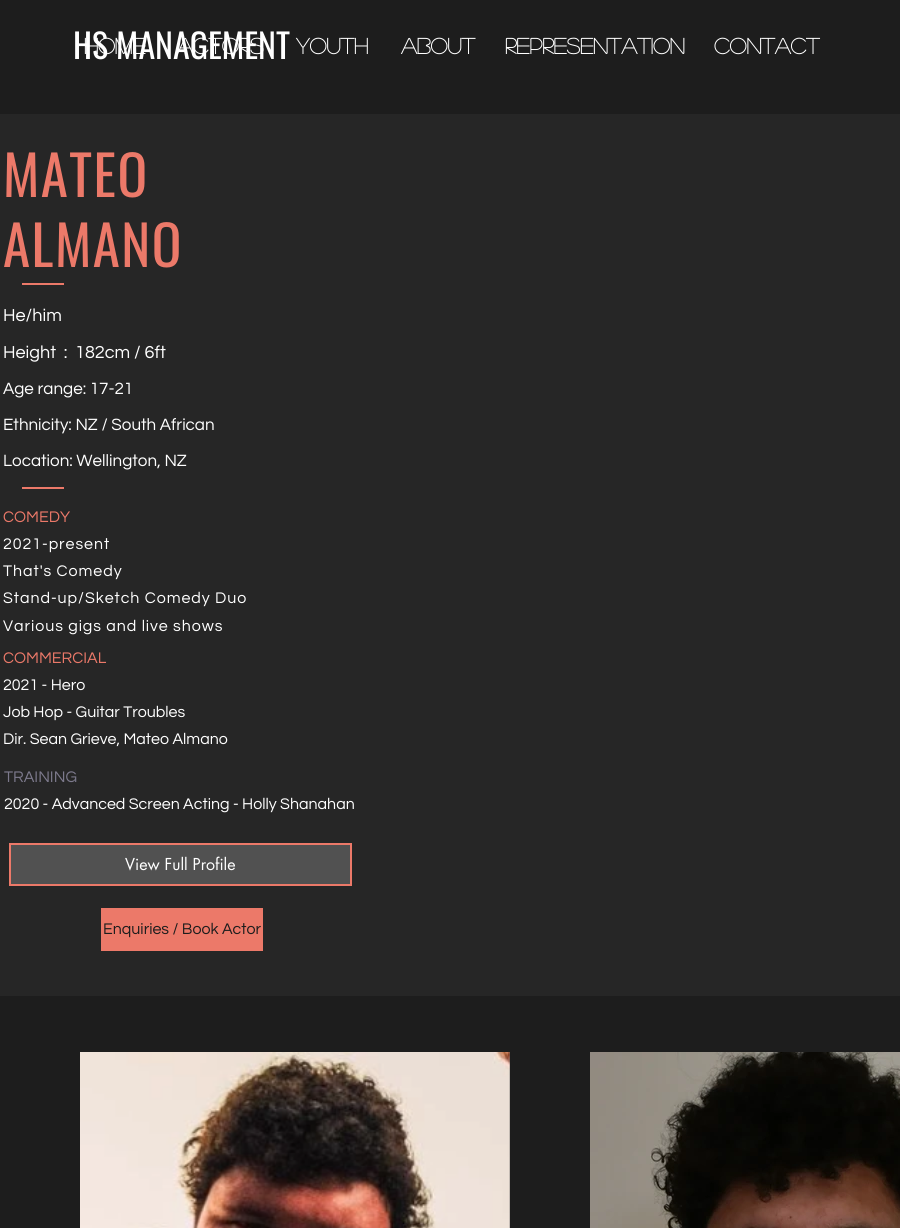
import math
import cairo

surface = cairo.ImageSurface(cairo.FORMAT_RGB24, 900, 1228)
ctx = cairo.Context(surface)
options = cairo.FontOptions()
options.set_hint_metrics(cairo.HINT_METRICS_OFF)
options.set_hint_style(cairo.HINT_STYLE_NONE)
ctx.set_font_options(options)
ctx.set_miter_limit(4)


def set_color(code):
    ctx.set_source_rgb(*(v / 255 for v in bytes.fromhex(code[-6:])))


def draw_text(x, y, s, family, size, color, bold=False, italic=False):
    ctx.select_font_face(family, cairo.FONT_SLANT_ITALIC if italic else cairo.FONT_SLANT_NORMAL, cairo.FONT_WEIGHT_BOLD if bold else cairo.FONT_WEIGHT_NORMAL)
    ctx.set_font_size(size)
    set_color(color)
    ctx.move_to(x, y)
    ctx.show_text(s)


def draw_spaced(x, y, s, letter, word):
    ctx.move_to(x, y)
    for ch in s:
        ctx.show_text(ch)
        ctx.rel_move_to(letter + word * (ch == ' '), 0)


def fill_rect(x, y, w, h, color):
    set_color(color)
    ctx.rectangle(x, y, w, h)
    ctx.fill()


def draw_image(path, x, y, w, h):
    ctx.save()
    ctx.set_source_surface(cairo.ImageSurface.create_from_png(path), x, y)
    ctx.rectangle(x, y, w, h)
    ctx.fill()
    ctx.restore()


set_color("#1d1d1d")
ctx.paint()
draw_text(84, 54, "Home", "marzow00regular", 22, "#ffffff", bold=True)
draw_text(177, 54, "Actors", "marzow00regular", 22, "#ffffff", bold=True)
draw_text(73, 59, "HS MANAGEMENT", "Oswald", 34, "#ffffff")
draw_text(296, 54, "Youth", "marzow00regular", 22, "#ffffff", bold=True)
draw_text(401, 54, "About", "marzow00regular", 22, "#ffffff", bold=True)
draw_text(505, 54, "Representation", "marzow00regular", 22, "#ffffff", bold=True)
draw_text(714, 54, "Contact", "marzow00regular", 22, "#ffffff", bold=True)
fill_rect(0, 114, 900, 882, "#262626")
ctx.select_font_face("Oswald")
ctx.set_font_size(55)
set_color("#ec7969")
draw_spaced(3, 197, "MATEO", 1.5, 0)
draw_spaced(3, 267, "ALMANO", 1.5, 0)
fill_rect(22, 283, 42, 2, "#ec7969")
draw_text(3, 321, "He/him", "Questrial", 18, "#ffffff")
draw_text(3, 358, "Height  :  182cm / 6ft", "Questrial", 18, "#ffffff")
draw_text(3, 394, "Age range: 17-21", "Questrial", 17, "#ffffff")
draw_text(3, 430, "Ethnicity: NZ / South African", "Questrial", 17, "#ffffff")
draw_text(3, 466, "Location: Wellington, NZ", "Questrial", 17, "#ffffff")
fill_rect(22, 487, 42, 2, "#ec7969")
draw_text(3, 522, "COMEDY", "Questrial", 16, "#ec7969")
set_color("#ffffff")
draw_spaced(3, 549, "2021-present", 0.95, 0)
draw_spaced(3, 576, "That's Comedy", 0.95, 0)
draw_spaced(3, 603, "Stand-up/Sketch Comedy Duo", 0.95, 0)
draw_spaced(3, 631, "Various gigs and live shows", 0.95, 0)
draw_text(3, 663, "COMMERCIAL", "Questrial", 16, "#ec7969")
draw_text(3, 690, "2021 - Hero", "Questrial", 16, "#ffffff")
draw_text(3, 717, "Job Hop - Guitar Troubles", "Questrial", 16, "#ffffff")
draw_text(3, 744, "Dir. Sean Grieve, Mateo Almano", "Questrial", 16, "#ffffff")
draw_text(4, 782, "TRAINING", "Questrial", 16, "#7d7a8d")
draw_text(4, 809, "2020 - Advanced Screen Acting - Holly Shanahan", "Questrial", 16, "#ffffff")
set_color("#515151")
ctx.rectangle(10, 844, 341, 41)
ctx.fill_preserve()
set_color("#ec7969")
ctx.stroke()
draw_text(125, 870, "View Full Profile", "futura", 16, "#ffffff")
fill_rect(101, 908, 162, 43, "#ec7969")
draw_text(103, 934, "Enquiries / Book Actor", "Questrial", 16, "#1d1d1d")
fill_rect(509, 1052, 1, 176, "#6e6d6d")
draw_image("assets/img1.png", 80, 1052, 430, 176)
draw_image("assets/img2.png", 590, 1052, 310, 176)
surface.write_to_png("output.png")
